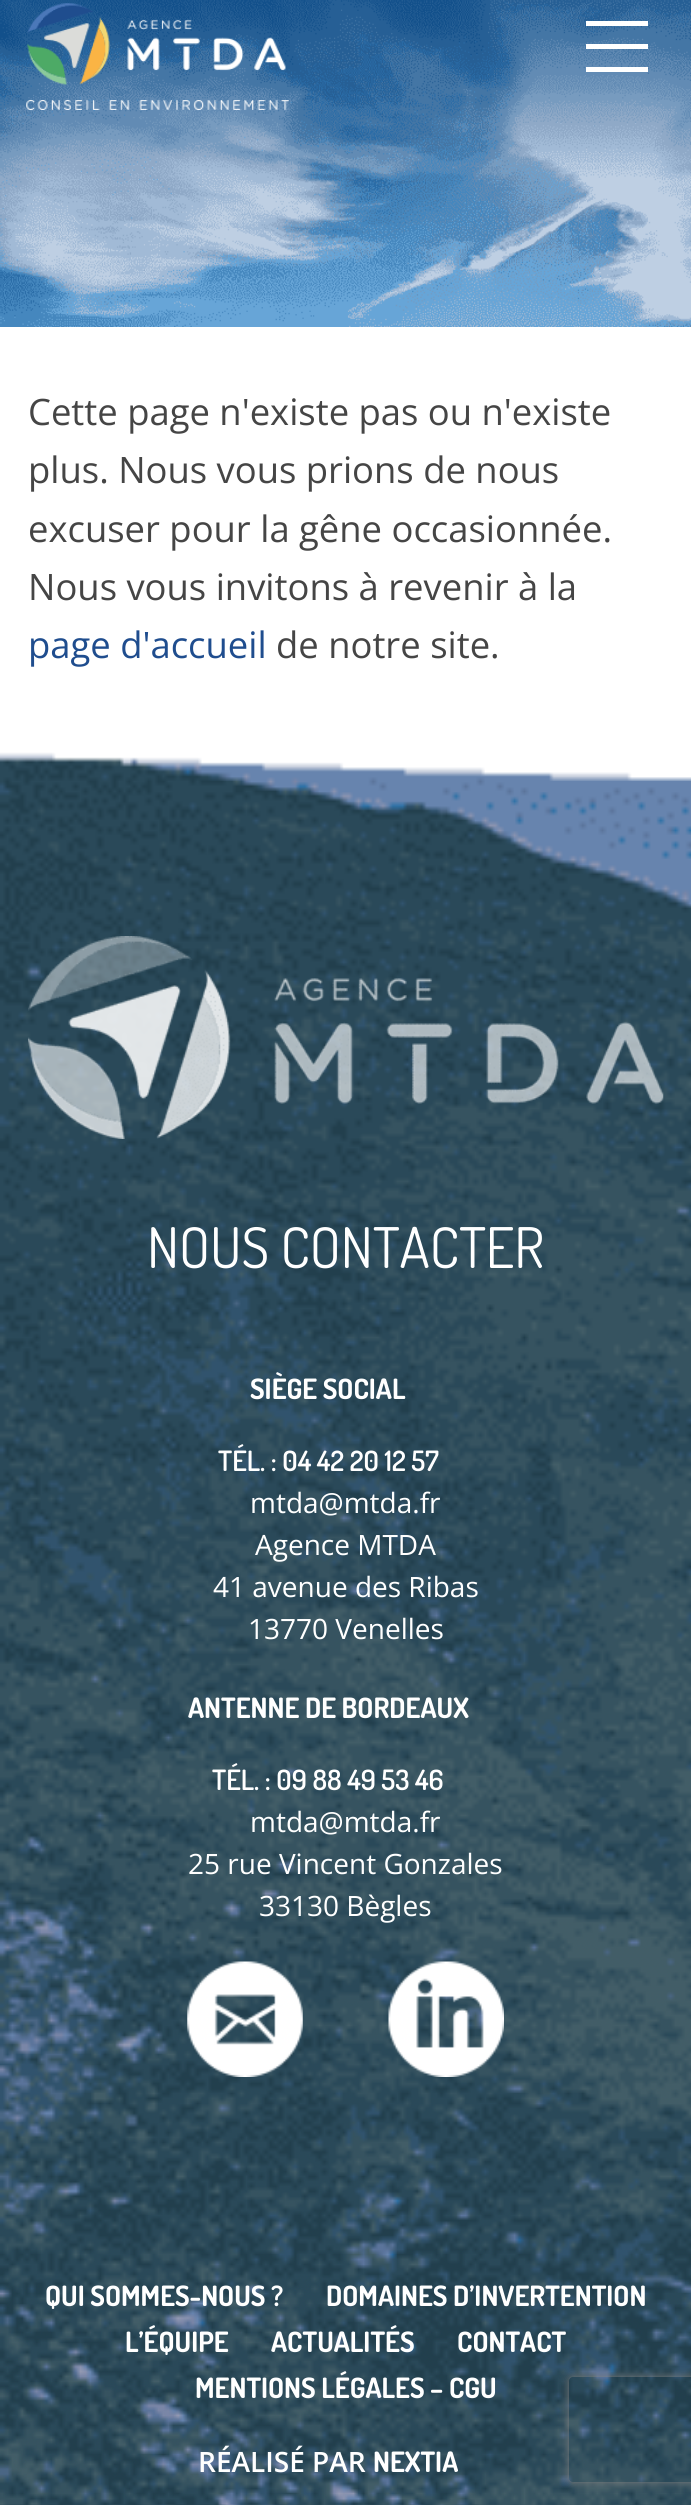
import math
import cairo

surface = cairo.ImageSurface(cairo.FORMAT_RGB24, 691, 2505)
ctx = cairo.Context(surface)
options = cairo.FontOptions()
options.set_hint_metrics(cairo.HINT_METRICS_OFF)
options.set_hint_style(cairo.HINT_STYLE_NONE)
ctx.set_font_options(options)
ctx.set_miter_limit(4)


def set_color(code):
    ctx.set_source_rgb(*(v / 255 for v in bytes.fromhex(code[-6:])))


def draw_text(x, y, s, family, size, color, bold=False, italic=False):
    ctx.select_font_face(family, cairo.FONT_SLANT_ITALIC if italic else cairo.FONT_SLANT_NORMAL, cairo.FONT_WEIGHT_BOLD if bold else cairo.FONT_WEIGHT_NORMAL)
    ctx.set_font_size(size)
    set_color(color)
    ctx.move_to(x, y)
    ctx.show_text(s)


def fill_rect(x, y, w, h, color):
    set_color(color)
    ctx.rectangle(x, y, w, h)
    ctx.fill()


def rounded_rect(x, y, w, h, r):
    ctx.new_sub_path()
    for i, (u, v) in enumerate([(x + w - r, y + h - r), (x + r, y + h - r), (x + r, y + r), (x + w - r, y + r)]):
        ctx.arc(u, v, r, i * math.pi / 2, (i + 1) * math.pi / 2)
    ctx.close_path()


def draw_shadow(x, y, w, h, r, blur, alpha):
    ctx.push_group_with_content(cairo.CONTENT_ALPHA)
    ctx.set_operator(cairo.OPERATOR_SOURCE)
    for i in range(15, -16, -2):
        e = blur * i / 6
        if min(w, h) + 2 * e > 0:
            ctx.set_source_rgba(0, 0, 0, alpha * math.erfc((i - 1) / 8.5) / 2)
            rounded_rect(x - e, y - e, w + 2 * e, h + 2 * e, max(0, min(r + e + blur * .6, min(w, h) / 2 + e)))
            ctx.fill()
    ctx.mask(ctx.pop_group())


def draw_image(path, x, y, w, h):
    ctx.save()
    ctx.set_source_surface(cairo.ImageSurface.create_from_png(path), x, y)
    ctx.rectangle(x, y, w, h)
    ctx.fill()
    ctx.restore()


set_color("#ffffff")
ctx.paint()
draw_image("assets/img1.png", 0, 0, 691, 327)
draw_image("assets/img2.png", 26, 3, 263, 107)
fill_rect(586, 44, 62, 5, "#ffffff")
fill_rect(586, 21, 62, 5, "#ffffff")
fill_rect(586, 67, 62, 5, "#ffffff")
draw_text(28, 425, "Cette page n'existe pas ou n'existe", "Open Sans", 36.4, "#454545")
draw_text(28, 483, "plus. Nous vous prions de nous", "Open Sans", 36.4, "#454545")
draw_text(28, 542, "excuser pour la gêne occasionnée.", "Open Sans", 36.4, "#454545")
draw_text(28, 600, "Nous vous invitons à revenir à la", "Open Sans", 36.4, "#454545")
draw_text(28, 658, "page d'accueil", "Open Sans", 36.4, "#1f4d8e")
draw_text(276, 658, "de notre site.", "Open Sans", 36.4, "#454545")
draw_image("assets/img3.png", 0, 752, 691, 1753)
draw_image("assets/img4.png", 28, 936, 636, 203)
draw_text(147, 1268, "NOUS CONTACTER", "Dosis", 56, "#ffffff")
draw_text(250, 1399, "SIÈGE SOCIAL", "Dosis", 28, "#ffffff", bold=True)
draw_text(218, 1471, "TÉL. : 04 42 20 12 57", "Dosis SemiBold", 28, "#ffffff")
draw_text(250, 1513, "mtda@mtda.fr", "Open Sans", 28, "#ffffff")
draw_text(255, 1555, "Agence MTDA", "Open Sans", 28, "#ffffff")
draw_text(213, 1597, "41 avenue des Ribas", "Open Sans", 28, "#ffffff")
draw_text(248, 1639, "13770 Venelles", "Open Sans", 28, "#ffffff")
draw_text(188, 1718, "ANTENNE DE BORDEAUX", "Dosis", 28, "#ffffff", bold=True)
draw_text(212, 1790, "TÉL. : 09 88 49 53 46", "Dosis SemiBold", 28, "#ffffff")
draw_text(250, 1832, "mtda@mtda.fr", "Open Sans", 28, "#ffffff")
draw_text(188, 1874, "25 rue Vincent Gonzales", "Open Sans", 28, "#ffffff")
draw_text(259, 1916, "33130 Bègles", "Open Sans", 28, "#ffffff")
draw_image("assets/img5.png", 187, 1961, 116, 116)
draw_image("assets/img6.png", 388, 1961, 116, 116)
draw_text(45, 2306, "QUI SOMMES-NOUS ?", "Dosis", 28, "#ffffff", bold=True)
draw_text(326, 2306, "DOMAINES D’INVERTENTION", "Dosis", 28, "#ffffff", bold=True)
draw_text(125, 2352, "L’ÉQUIPE", "Dosis", 28, "#ffffff", bold=True)
draw_text(271, 2352, "ACTUALITÉS", "Dosis", 28, "#ffffff", bold=True)
draw_text(457, 2352, "CONTACT", "Dosis", 28, "#ffffff", bold=True)
draw_text(195, 2398, "MENTIONS LÉGALES – CGU", "Dosis", 28, "#ffffff", bold=True)
draw_text(198, 2472, "RÉALISÉ PAR", "Open Sans SemiBold", 28, "#ffffff")
draw_text(373, 2472, "NEXTIA", "Dosis", 28, "#ffffff", bold=True)
ctx.save()
ctx.set_fill_rule(cairo.FILL_RULE_EVEN_ODD)
ctx.new_path()
ctx.move_to(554, 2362)
ctx.line_to(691, 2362)
ctx.line_to(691, 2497)
ctx.line_to(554, 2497)
ctx.close_path()
ctx.move_to(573, 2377)
ctx.line_to(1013, 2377)
ctx.curve_to(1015, 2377, 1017, 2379, 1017, 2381)
ctx.line_to(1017, 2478)
ctx.curve_to(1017, 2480, 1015, 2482, 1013, 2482)
ctx.line_to(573, 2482)
ctx.curve_to(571, 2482, 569, 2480, 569, 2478)
ctx.line_to(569, 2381)
ctx.curve_to(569, 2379, 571, 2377, 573, 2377)
ctx.close_path()
ctx.clip()
set_color("#808080")
draw_shadow(569, 2377, 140, 105, 4, 4.5, 1)
ctx.restore()
surface.write_to_png("output.png")
